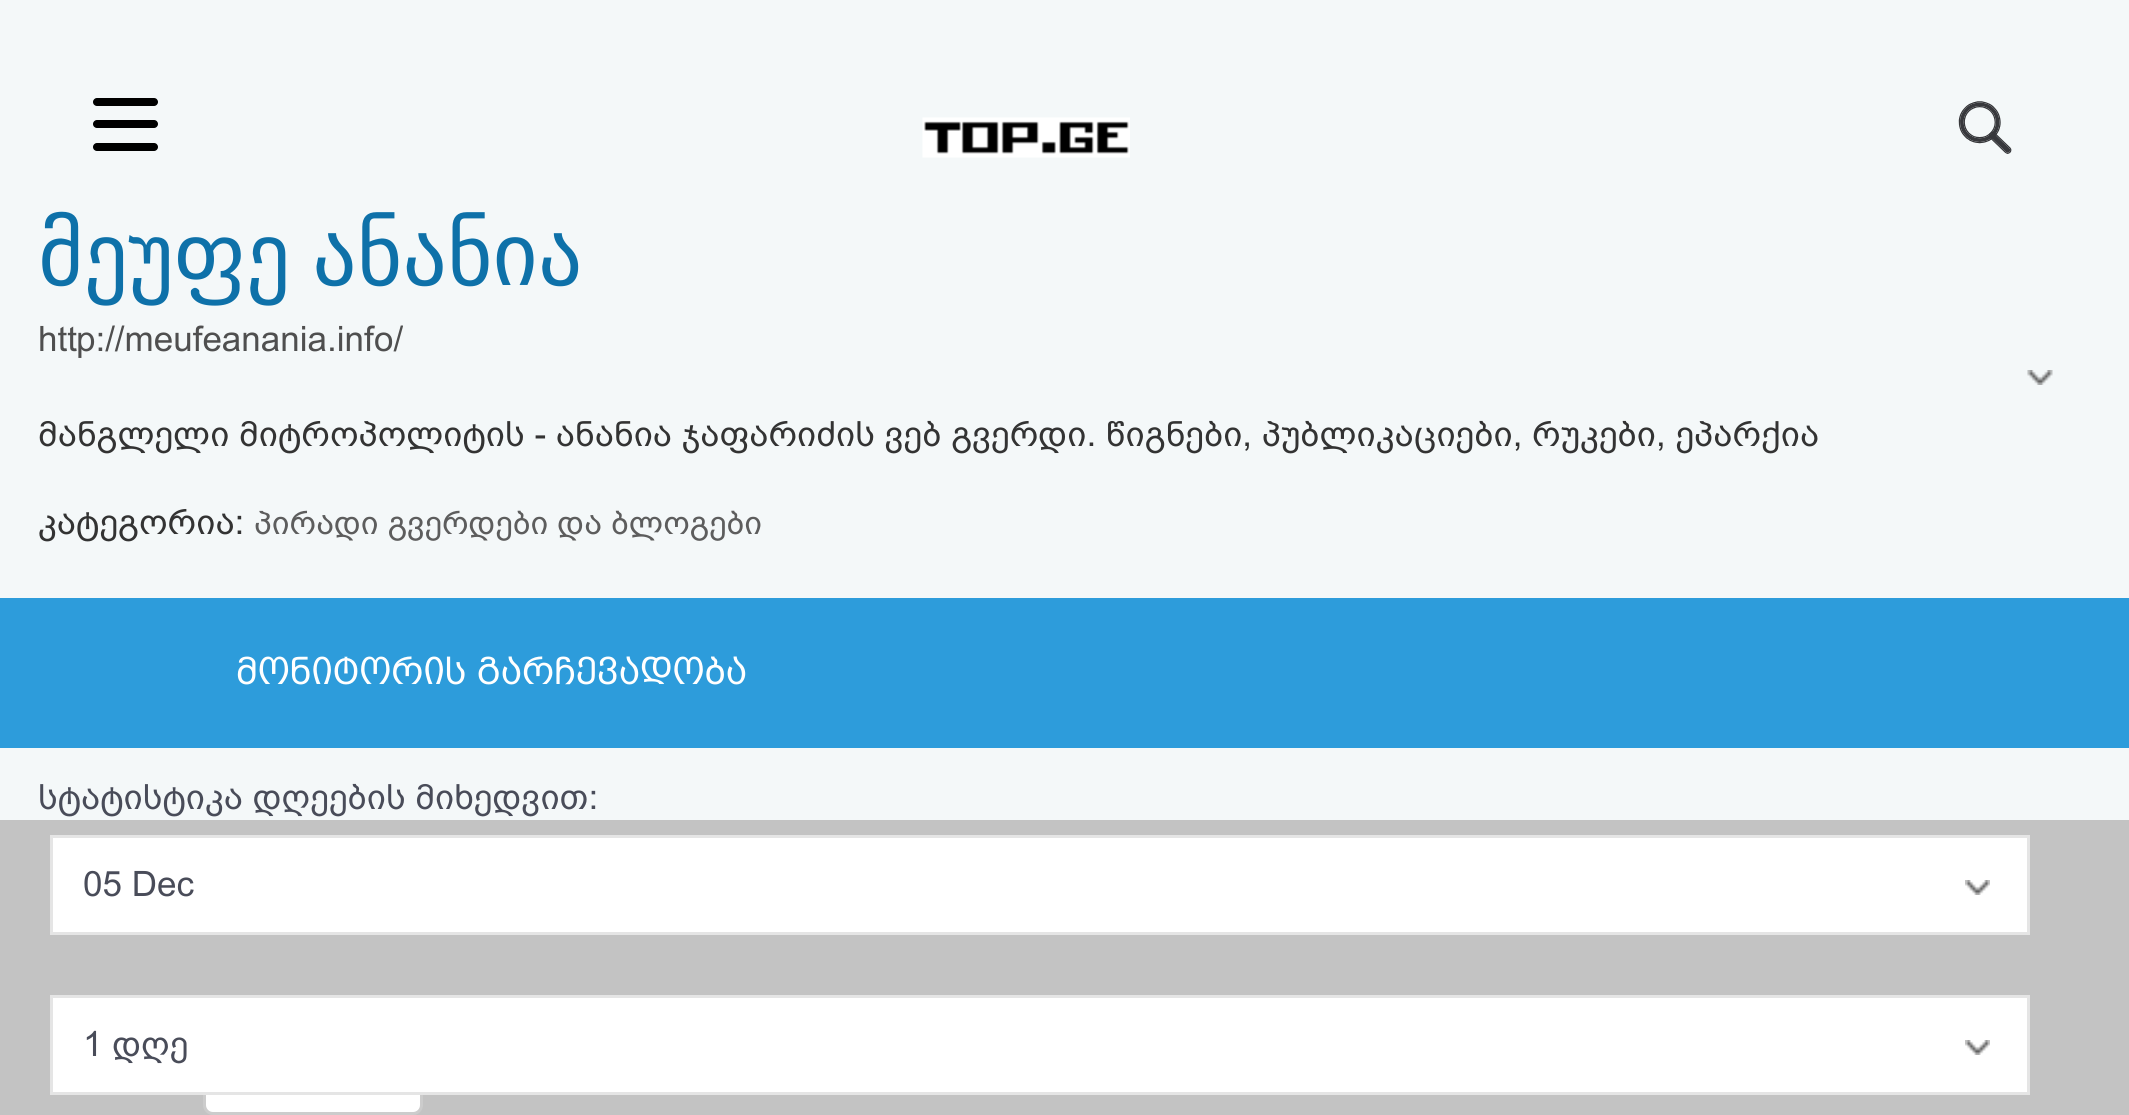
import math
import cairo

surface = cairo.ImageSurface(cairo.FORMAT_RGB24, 2129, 1115)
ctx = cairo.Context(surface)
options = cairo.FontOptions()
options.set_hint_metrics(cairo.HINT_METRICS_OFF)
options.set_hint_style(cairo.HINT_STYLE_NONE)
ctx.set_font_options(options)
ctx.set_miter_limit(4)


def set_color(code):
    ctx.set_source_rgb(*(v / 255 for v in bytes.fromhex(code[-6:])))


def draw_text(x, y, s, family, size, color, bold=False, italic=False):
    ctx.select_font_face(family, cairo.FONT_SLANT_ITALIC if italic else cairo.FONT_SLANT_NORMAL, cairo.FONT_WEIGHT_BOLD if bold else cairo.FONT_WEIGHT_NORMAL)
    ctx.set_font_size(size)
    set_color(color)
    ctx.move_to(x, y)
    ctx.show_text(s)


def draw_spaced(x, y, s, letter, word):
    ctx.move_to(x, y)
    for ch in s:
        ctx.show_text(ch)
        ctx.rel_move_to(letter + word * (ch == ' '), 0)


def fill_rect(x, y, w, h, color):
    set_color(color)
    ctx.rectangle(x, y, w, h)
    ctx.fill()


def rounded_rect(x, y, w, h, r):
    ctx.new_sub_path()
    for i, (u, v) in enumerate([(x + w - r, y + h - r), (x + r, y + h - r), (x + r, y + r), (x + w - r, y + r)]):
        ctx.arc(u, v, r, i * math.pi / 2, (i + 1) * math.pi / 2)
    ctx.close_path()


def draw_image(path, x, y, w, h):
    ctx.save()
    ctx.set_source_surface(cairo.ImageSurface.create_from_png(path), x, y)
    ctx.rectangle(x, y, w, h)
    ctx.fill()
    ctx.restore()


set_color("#f4f8f9")
ctx.paint()
set_color("#000000")
rounded_rect(93, 98, 65, 8, 4)
ctx.fill()
rounded_rect(93, 120, 65, 8, 4)
ctx.fill()
rounded_rect(93, 143, 65, 8, 4)
ctx.fill()
draw_image("assets/img1.png", 922, 117, 208, 41)
draw_image("assets/img2.png", 1958, 101, 54, 53)
draw_image("assets/img3.png", 2027, 370, 26, 15)
ctx.select_font_face("DejaVu Sans")
ctx.set_font_size(87.5)
set_color("#0e71a9")
draw_spaced(38, 285, "მეუფე ანანია", 0, -6)
draw_text(38, 351, "http://meufeanania.info/", "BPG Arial", 35, "#4f4f4f")
draw_text(38, 446, "მანგლელი მიტროპოლიტის - ანანია ჯაფარიძის ვებ გვერდი. წიგნები, პუბლიკაციები, რუკები, ეპარქია", "BPG Arial", 35, "#333333")
draw_text(38, 534, "კატეგორია:", "BPG Arial", 35, "#333333")
draw_text(254, 534, "პირადი გვერდები და ბლოგები", "BPG Arial", 32.5, "#5d5d5d")
fill_rect(0, 598, 2129, 150, "#2d9cdb")
draw_text(236, 684, "მონიტორის გარჩევადობა", "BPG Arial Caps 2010", 37.5, "#ffffff")
draw_text(38, 809, "სტატისტიკა დღეების მიხედვით:", "BPG Arial", 35, "#494c59")
fill_rect(0, 820, 2129, 295, "#c3c3c3")
set_color("#ffffff")
ctx.rectangle(51.5, 836.5, 1977, 97)
ctx.fill_preserve()
set_color("#e5e5e5")
ctx.set_line_width(3)
ctx.stroke()
draw_text(83, 896, "05 Dec", "BPG Arial", 35, "#494c59")
draw_image("assets/img4.png", 1965, 880, 25, 15)
set_color("#ffffff")
rounded_rect(204.5, 1031.5, 217, 82, 8.5)
ctx.fill_preserve()
set_color("#cccccc")
ctx.stroke()
set_color("#ffffff")
ctx.rectangle(51.5, 996.5, 1977, 97)
ctx.fill_preserve()
set_color("#e5e5e5")
ctx.stroke()
draw_text(83, 1056, "1 დღე", "BPG Arial", 35, "#494c59")
draw_image("assets/img4.png", 1965, 1040, 25, 15)
surface.write_to_png("output.png")
